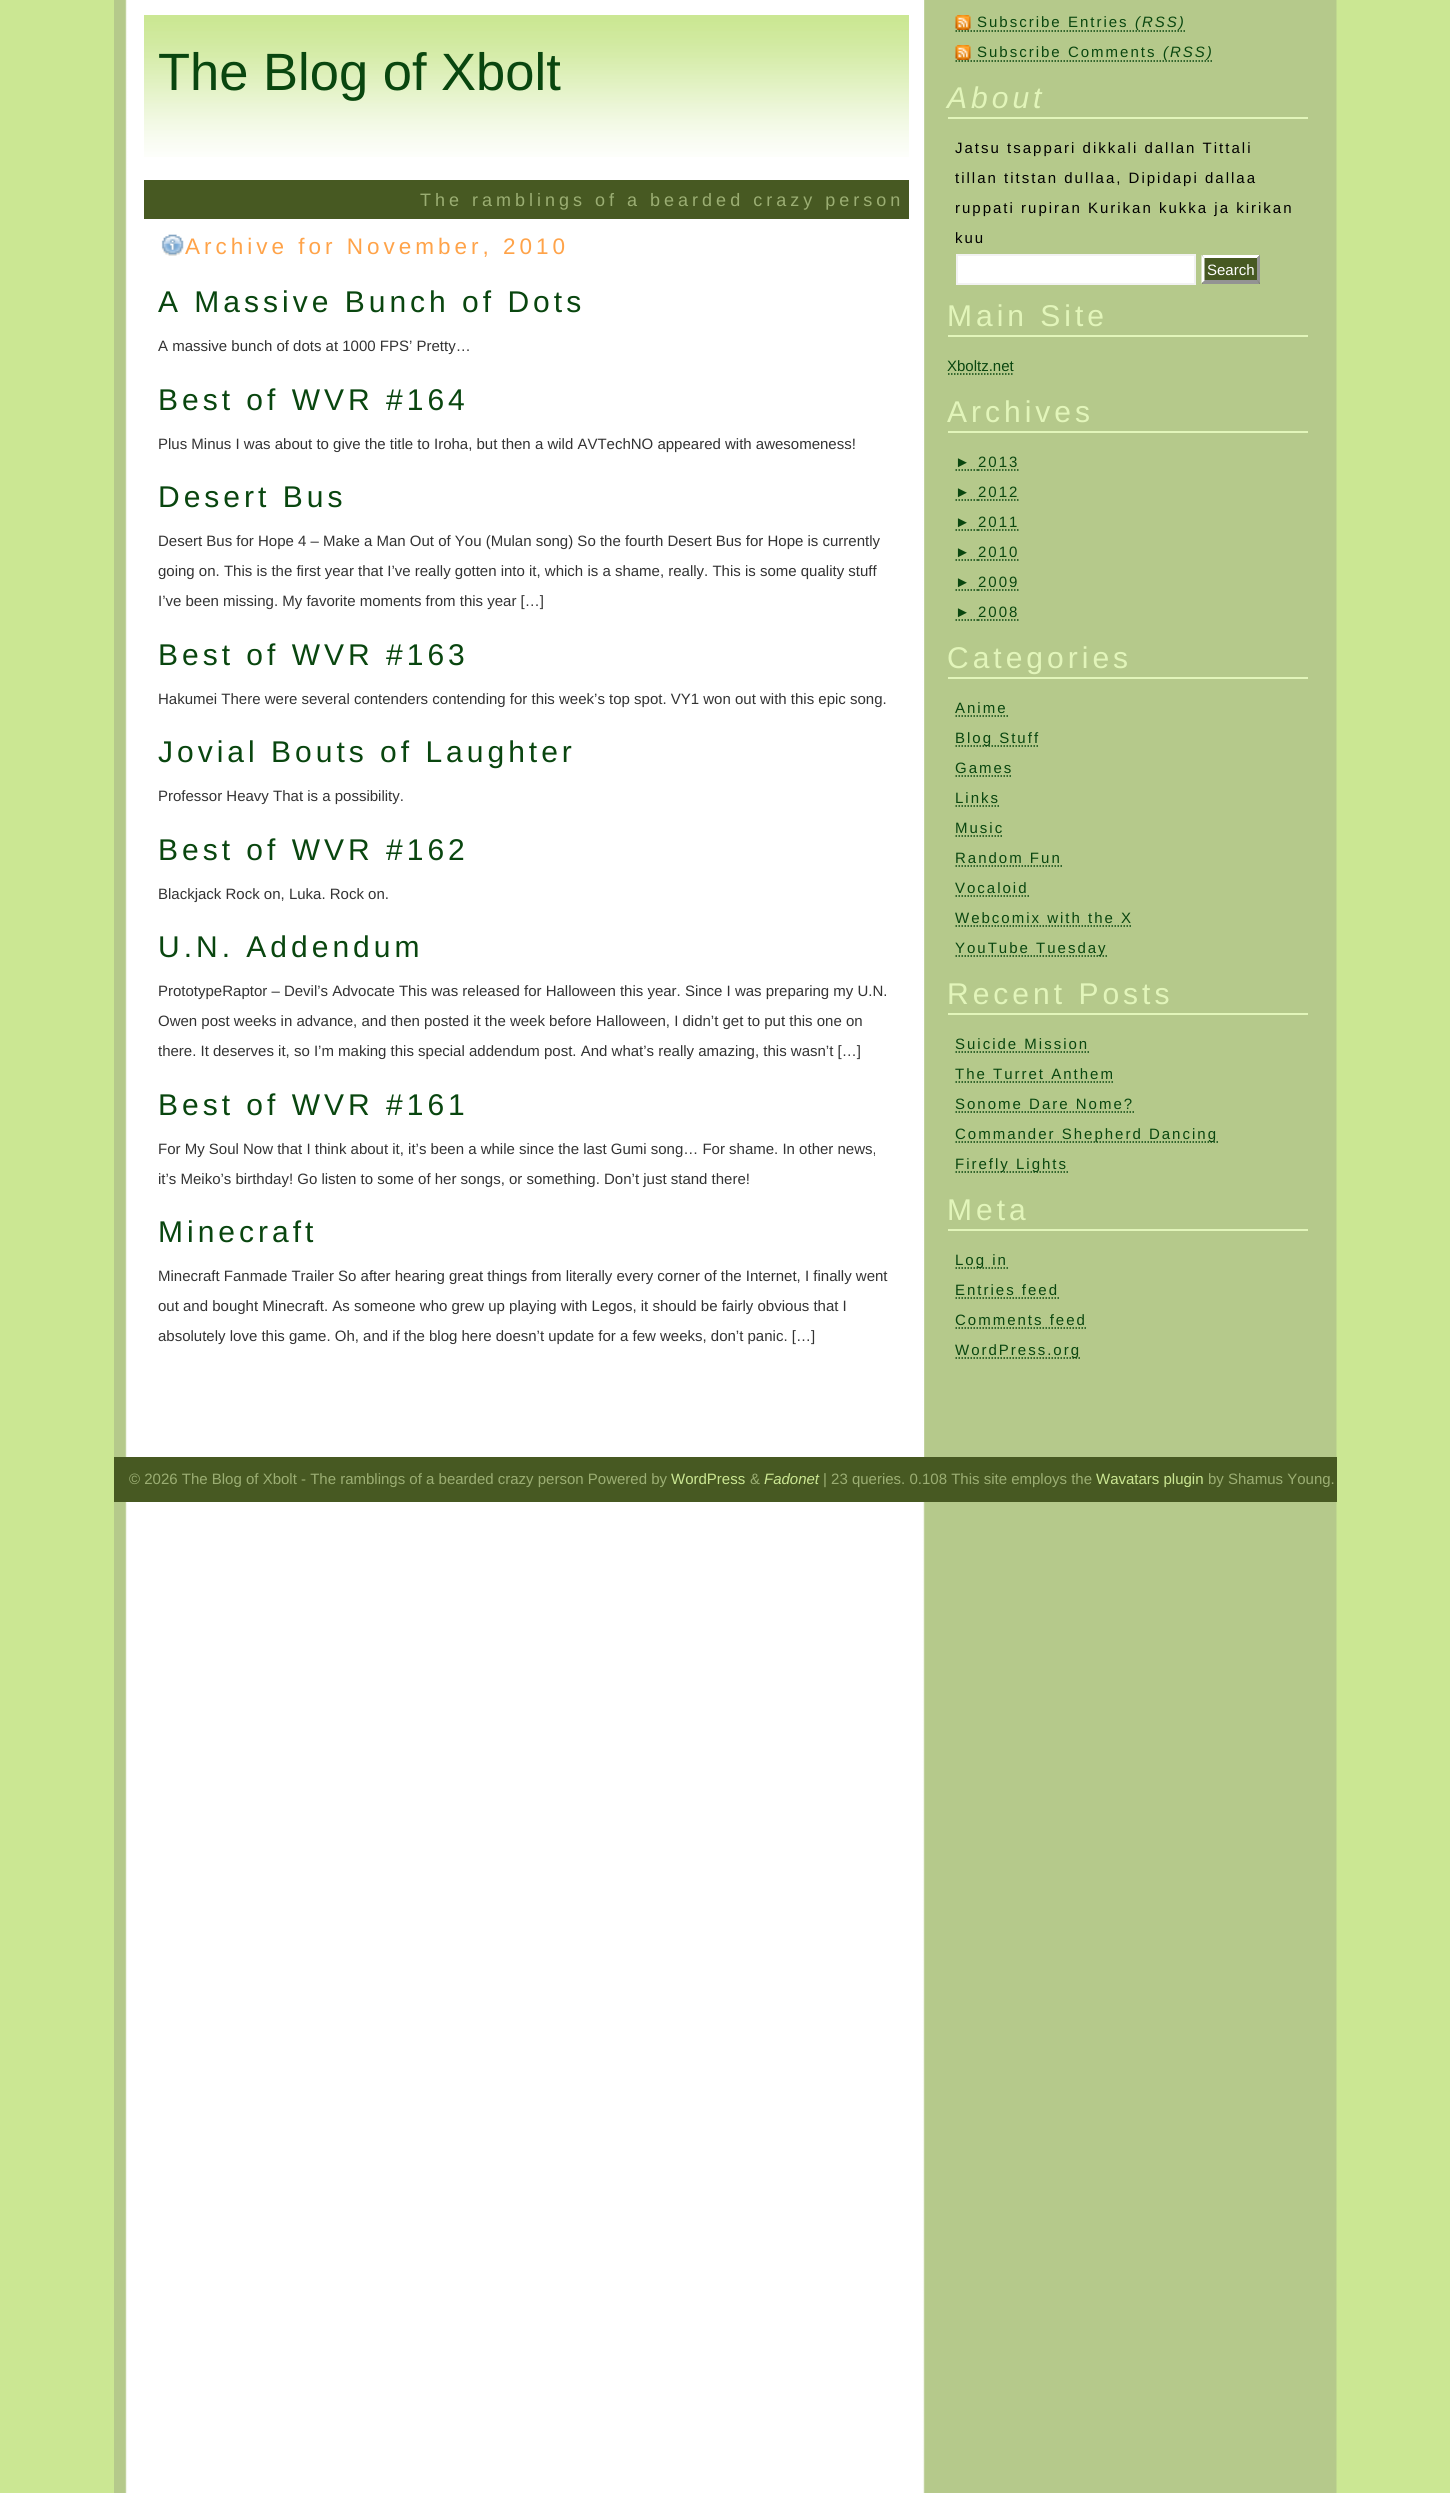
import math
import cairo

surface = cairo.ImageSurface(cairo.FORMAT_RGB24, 1450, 2493)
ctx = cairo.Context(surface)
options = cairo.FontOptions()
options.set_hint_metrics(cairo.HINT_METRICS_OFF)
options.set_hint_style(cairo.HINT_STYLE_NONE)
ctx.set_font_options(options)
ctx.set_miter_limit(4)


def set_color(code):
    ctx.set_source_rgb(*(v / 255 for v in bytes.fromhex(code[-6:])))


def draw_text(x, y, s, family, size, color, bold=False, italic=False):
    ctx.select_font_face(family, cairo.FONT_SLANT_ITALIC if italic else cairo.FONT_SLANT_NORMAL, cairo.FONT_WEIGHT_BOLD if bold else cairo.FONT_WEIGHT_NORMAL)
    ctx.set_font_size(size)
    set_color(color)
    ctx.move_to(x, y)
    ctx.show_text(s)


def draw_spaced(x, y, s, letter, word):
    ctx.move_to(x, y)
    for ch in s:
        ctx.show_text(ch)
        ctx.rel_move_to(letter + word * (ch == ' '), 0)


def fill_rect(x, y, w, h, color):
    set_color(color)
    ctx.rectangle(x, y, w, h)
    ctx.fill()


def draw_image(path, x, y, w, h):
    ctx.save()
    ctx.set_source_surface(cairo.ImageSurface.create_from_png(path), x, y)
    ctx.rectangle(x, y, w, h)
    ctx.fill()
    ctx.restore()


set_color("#cbe793")
ctx.paint()
draw_image("assets/img1.png", 114, 0, 1223, 2493)
fill_rect(923, 0, 1, 1457, "#ffffff")
draw_image("assets/img2.png", 144, 15, 765, 142)
draw_text(158, 90, "The Blog of Xbolt", "Liberation Sans", 52.5, "#09460f")
fill_rect(144, 180, 765, 39, "#475922")
ctx.set_font_size(18)
set_color("#9bae73")
draw_spaced(420, 206, "The ramblings of a bearded crazy person", 4, 0)
draw_image("assets/img3.png", 161, 234, 23, 22)
ctx.set_font_size(22.5)
set_color("#ffa349")
draw_spaced(185, 254, "Archive for November, 2010", 4, 0)
ctx.set_font_size(30)
set_color("#09460f")
draw_spaced(158, 312, "A Massive Bunch of Dots", 4, 0)
draw_text(158, 351, "A massive bunch of dots at 1000 FPS’ Pretty…", "Liberation Sans", 15, "#333333")
ctx.set_font_size(30)
set_color("#09460f")
draw_spaced(158, 410, "Best of WVR #164", 4, 0)
draw_text(158, 449, "Plus Minus I was about to give the title to Iroha, but then a wild AVTechNO appeared with awesomeness!", "Liberation Sans", 15, "#333333")
ctx.set_font_size(30)
set_color("#09460f")
draw_spaced(158, 507, "Desert Bus", 4, 0)
draw_text(158, 546, "Desert Bus for Hope 4 – Make a Man Out of You (Mulan song) So the fourth Desert Bus for Hope is currently", "Liberation Sans", 15, "#333333")
draw_text(158, 576, "going on. This is the first year that I’ve really gotten into it, which is a shame, really. This is some quality stuff", "Liberation Sans", 15, "#333333")
draw_text(158, 606, "I’ve been missing. My favorite moments from this year […]", "Liberation Sans", 15, "#333333")
ctx.set_font_size(30)
set_color("#09460f")
draw_spaced(158, 665, "Best of WVR #163", 4, 0)
draw_text(158, 704, "Hakumei There were several contenders contending for this week’s top spot. VY1 won out with this epic song.", "Liberation Sans", 15, "#333333")
ctx.set_font_size(30)
set_color("#09460f")
draw_spaced(158, 762, "Jovial Bouts of Laughter", 4, 0)
draw_text(158, 801, "Professor Heavy That is a possibility.", "Liberation Sans", 15, "#333333")
ctx.set_font_size(30)
set_color("#09460f")
draw_spaced(158, 860, "Best of WVR #162", 4, 0)
draw_text(158, 899, "Blackjack Rock on, Luka. Rock on.", "Liberation Sans", 15, "#333333")
ctx.set_font_size(30)
set_color("#09460f")
draw_spaced(158, 957, "U.N. Addendum", 4, 0)
draw_text(158, 996, "PrototypeRaptor – Devil’s Advocate This was released for Halloween this year. Since I was preparing my U.N.", "Liberation Sans", 15, "#333333")
draw_text(158, 1026, "Owen post weeks in advance, and then posted it the week before Halloween, I didn’t get to put this one on", "Liberation Sans", 15, "#333333")
draw_text(158, 1056, "there. It deserves it, so I’m making this special addendum post. And what’s really amazing, this wasn’t […]", "Liberation Sans", 15, "#333333")
ctx.set_font_size(30)
set_color("#09460f")
draw_spaced(158, 1115, "Best of WVR #161", 4, 0)
draw_text(158, 1154, "For My Soul Now that I think about it, it’s been a while since the last Gumi song… For shame. In other news,", "Liberation Sans", 15, "#333333")
draw_text(158, 1184, "it’s Meiko’s birthday! Go listen to some of her songs, or something. Don’t just stand there!", "Liberation Sans", 15, "#333333")
ctx.set_font_size(30)
set_color("#09460f")
draw_spaced(158, 1242, "Minecraft", 4, 0)
draw_text(158, 1281, "Minecraft Fanmade Trailer So after hearing great things from literally every corner of the Internet, I finally went", "Liberation Sans", 15, "#333333")
draw_text(158, 1311, "out and bought Minecraft. As someone who grew up playing with Legos, it should be fairly obvious that I", "Liberation Sans", 15, "#333333")
draw_text(158, 1341, "absolutely love this game. Oh, and if the blog here doesn’t update for a few weeks, don’t panic. […]", "Liberation Sans", 15, "#333333")
draw_image("assets/img4.png", 955, 15, 16, 15)
set_color("#09460f")
draw_spaced(977, 27, "Subscribe Entries", 2, 0)
ctx.new_path()
ctx.move_to(1135.5, 31)
ctx.line_to(1186.5, 31)
ctx.set_line_width(1.5)
ctx.set_dash([1.5, 1.5])
ctx.stroke()
ctx.select_font_face("Liberation Sans", cairo.FONT_SLANT_ITALIC)
draw_spaced(1135, 27, "(RSS)", 2, 0)
ctx.new_path()
ctx.move_to(955.5, 31)
ctx.line_to(1135.5, 31)
ctx.stroke()
draw_image("assets/img4.png", 955, 45, 16, 15)
ctx.select_font_face("Liberation Sans")
draw_spaced(977, 57, "Subscribe Comments", 2, 0)
ctx.new_path()
ctx.move_to(1162.5, 61)
ctx.line_to(1213.5, 61)
ctx.stroke()
ctx.select_font_face("Liberation Sans", cairo.FONT_SLANT_ITALIC)
draw_spaced(1163, 57, "(RSS)", 2, 0)
ctx.new_path()
ctx.move_to(955.5, 61)
ctx.line_to(1162.5, 61)
ctx.stroke()
fill_rect(948, 117, 360, 2, "#e2f5ba")
ctx.set_font_size(30)
draw_spaced(947, 108, "About", 4, 0)
ctx.select_font_face("Liberation Sans")
ctx.set_font_size(15)
set_color("#000000")
draw_spaced(955, 153, "Jatsu tsappari dikkali dallan Tittali", 2, 0)
draw_spaced(955, 183, "tillan titstan dullaa, Dipidapi dallaa", 2, 0)
draw_spaced(955, 213, "ruppati rupiran Kurikan kukka ja kirikan", 2, 0)
draw_spaced(955, 243, "kuu", 2, 0)
set_color("#ffffff")
ctx.rectangle(957, 255, 238, 29)
ctx.fill_preserve()
set_color("#f2f2f2")
ctx.set_line_width(2)
ctx.set_dash([])
ctx.stroke()
fill_rect(1202, 255, 58, 29, "#475922")
set_color("#ffffff")
ctx.new_path()
ctx.move_to(1202, 255)
ctx.line_to(1260, 255)
ctx.line_to(1257, 258)
ctx.line_to(1204, 258)
ctx.close_path()
ctx.fill()
set_color("#939393")
ctx.new_path()
ctx.move_to(1260, 255)
ctx.line_to(1260, 283.5)
ctx.line_to(1257, 280.5)
ctx.line_to(1257, 258)
ctx.close_path()
ctx.fill()
ctx.new_path()
ctx.move_to(1260, 284)
ctx.line_to(1202, 284)
ctx.line_to(1204, 280)
ctx.line_to(1257, 280)
ctx.close_path()
ctx.fill()
set_color("#ffffff")
ctx.new_path()
ctx.move_to(1201.5, 283.5)
ctx.line_to(1201.5, 255)
ctx.line_to(1204.5, 258)
ctx.line_to(1204.5, 280.5)
ctx.close_path()
ctx.fill()
draw_text(1207, 275, "Search", "Liberation Sans", 15, "#ffffff")
fill_rect(948, 335, 360, 2, "#e2f5ba")
ctx.set_font_size(30)
draw_spaced(947, 326, "Main Site", 4, 0)
draw_text(947, 371, "Xboltz.net", "Liberation Sans", 15, "#09460f")
ctx.new_path()
ctx.move_to(948, 374)
ctx.line_to(1014, 374)
ctx.set_line_width(1.5)
ctx.set_dash([1.5, 1.5])
ctx.stroke()
fill_rect(948, 431, 360, 2, "#e2f5ba")
ctx.set_font_size(30)
draw_spaced(947, 422, "Archives", 4, 0)
ctx.set_font_size(15)
set_color("#09460f")
draw_spaced(955, 467, "► 2013", 2, 0)
ctx.new_path()
ctx.move_to(955.5, 470)
ctx.line_to(978, 470)
ctx.stroke()
ctx.new_path()
ctx.move_to(978, 470)
ctx.line_to(1018.5, 470)
ctx.stroke()
draw_spaced(955, 497, "► 2012", 2, 0)
ctx.new_path()
ctx.move_to(955.5, 500)
ctx.line_to(978, 500)
ctx.stroke()
ctx.new_path()
ctx.move_to(978, 500)
ctx.line_to(1018.5, 500)
ctx.stroke()
draw_spaced(955, 527, "► 2011", 2, 0)
ctx.new_path()
ctx.move_to(955.5, 530)
ctx.line_to(978, 530)
ctx.stroke()
ctx.new_path()
ctx.move_to(978, 530)
ctx.line_to(1018.5, 530)
ctx.stroke()
draw_spaced(955, 557, "► 2010", 2, 0)
ctx.new_path()
ctx.move_to(955.5, 560)
ctx.line_to(978, 560)
ctx.stroke()
ctx.new_path()
ctx.move_to(978, 560)
ctx.line_to(1018.5, 560)
ctx.stroke()
draw_spaced(955, 587, "► 2009", 2, 0)
ctx.new_path()
ctx.move_to(955.5, 590)
ctx.line_to(978, 590)
ctx.stroke()
ctx.new_path()
ctx.move_to(978, 590)
ctx.line_to(1018.5, 590)
ctx.stroke()
draw_spaced(955, 617, "► 2008", 2, 0)
ctx.new_path()
ctx.move_to(955.5, 620)
ctx.line_to(978, 620)
ctx.stroke()
ctx.new_path()
ctx.move_to(978, 620)
ctx.line_to(1018.5, 620)
ctx.stroke()
fill_rect(948, 677, 360, 2, "#e2f5ba")
ctx.set_font_size(30)
draw_spaced(947, 668, "Categories", 4, 0)
ctx.set_font_size(15)
set_color("#09460f")
draw_spaced(955, 713, "Anime", 2, 0)
ctx.new_path()
ctx.move_to(955.5, 716)
ctx.line_to(1008, 716)
ctx.stroke()
ctx.new_path()
ctx.move_to(955.5, 746)
ctx.line_to(1039.5, 746)
ctx.stroke()
draw_spaced(955, 743, "Blog Stuff", 2, 0)
draw_spaced(955, 773, "Games", 2, 0)
ctx.new_path()
ctx.move_to(955.5, 776)
ctx.line_to(1012.5, 776)
ctx.stroke()
draw_spaced(955, 803, "Links", 2, 0)
ctx.new_path()
ctx.move_to(955.5, 806)
ctx.line_to(1000.5, 806)
ctx.stroke()
draw_spaced(955, 833, "Music", 2, 0)
ctx.new_path()
ctx.move_to(955.5, 836)
ctx.line_to(1003.5, 836)
ctx.stroke()
draw_spaced(955, 863, "Random Fun", 2, 0)
ctx.new_path()
ctx.move_to(955.5, 866)
ctx.line_to(1062, 866)
ctx.stroke()
draw_spaced(955, 893, "Vocaloid", 2, 0)
ctx.new_path()
ctx.move_to(955.5, 896)
ctx.line_to(1029, 896)
ctx.stroke()
draw_spaced(955, 923, "Webcomix with the X", 2, 0)
ctx.new_path()
ctx.move_to(955.5, 926)
ctx.line_to(1132.5, 926)
ctx.stroke()
ctx.new_path()
ctx.move_to(955.5, 956)
ctx.line_to(1107, 956)
ctx.stroke()
draw_spaced(955, 953, "YouTube Tuesday", 2, 0)
fill_rect(948, 1013, 360, 2, "#e2f5ba")
ctx.set_font_size(30)
draw_spaced(947, 1004, "Recent Posts", 4, 0)
ctx.set_font_size(15)
set_color("#09460f")
draw_spaced(955, 1049, "Suicide Mission", 2, 0)
ctx.new_path()
ctx.move_to(955.5, 1052)
ctx.line_to(1089, 1052)
ctx.stroke()
draw_spaced(955, 1079, "The Turret Anthem", 2, 0)
ctx.new_path()
ctx.move_to(955.5, 1082)
ctx.line_to(1114.5, 1082)
ctx.stroke()
draw_spaced(955, 1109, "Sonome Dare Nome?", 2, 0)
ctx.new_path()
ctx.move_to(955.5, 1112)
ctx.line_to(1134, 1112)
ctx.stroke()
ctx.new_path()
ctx.move_to(955.5, 1142)
ctx.line_to(1218, 1142)
ctx.stroke()
draw_spaced(955, 1139, "Commander Shepherd Dancing", 2, 0)
ctx.new_path()
ctx.move_to(955.5, 1172)
ctx.line_to(1068, 1172)
ctx.stroke()
draw_spaced(955, 1169, "Firefly Lights", 2, 0)
fill_rect(948, 1229, 360, 2, "#e2f5ba")
ctx.set_font_size(30)
draw_spaced(947, 1220, "Meta", 4, 0)
ctx.new_path()
ctx.move_to(955.5, 1268)
ctx.line_to(1008, 1268)
set_color("#09460f")
ctx.stroke()
ctx.set_font_size(15)
draw_spaced(955, 1265, "Log in", 2, 0)
draw_spaced(955, 1295, "Entries feed", 2, 0)
ctx.new_path()
ctx.move_to(955.5, 1298)
ctx.line_to(1059, 1298)
ctx.stroke()
draw_spaced(955, 1325, "Comments feed", 2, 0)
ctx.new_path()
ctx.move_to(955.5, 1328)
ctx.line_to(1086, 1328)
ctx.stroke()
ctx.new_path()
ctx.move_to(955.5, 1358)
ctx.line_to(1081.5, 1358)
ctx.stroke()
draw_spaced(955, 1355, "WordPress.org", 2, 0)
fill_rect(114, 1457, 1223, 45, "#475922")
draw_text(129, 1484, "© 2026 The Blog of Xbolt - The ramblings of a bearded crazy person Powered by", "Liberation Sans", 15, "#9bae73")
draw_text(671, 1484, "WordPress", "Liberation Sans", 15, "#cbe793")
draw_text(750, 1484, "&", "Liberation Sans", 15, "#9bae73")
draw_text(764, 1484, "Fadonet", "Liberation Sans", 15, "#cbe793", italic=True)
draw_text(823, 1484, "| 23 queries. 0.108 This site employs the", "Liberation Sans", 15, "#9bae73")
draw_text(1096, 1484, "Wavatars plugin", "Liberation Sans", 15, "#cbe793")
draw_text(1208, 1484, "by Shamus Young.", "Liberation Sans", 15, "#9bae73")
surface.write_to_png("output.png")
